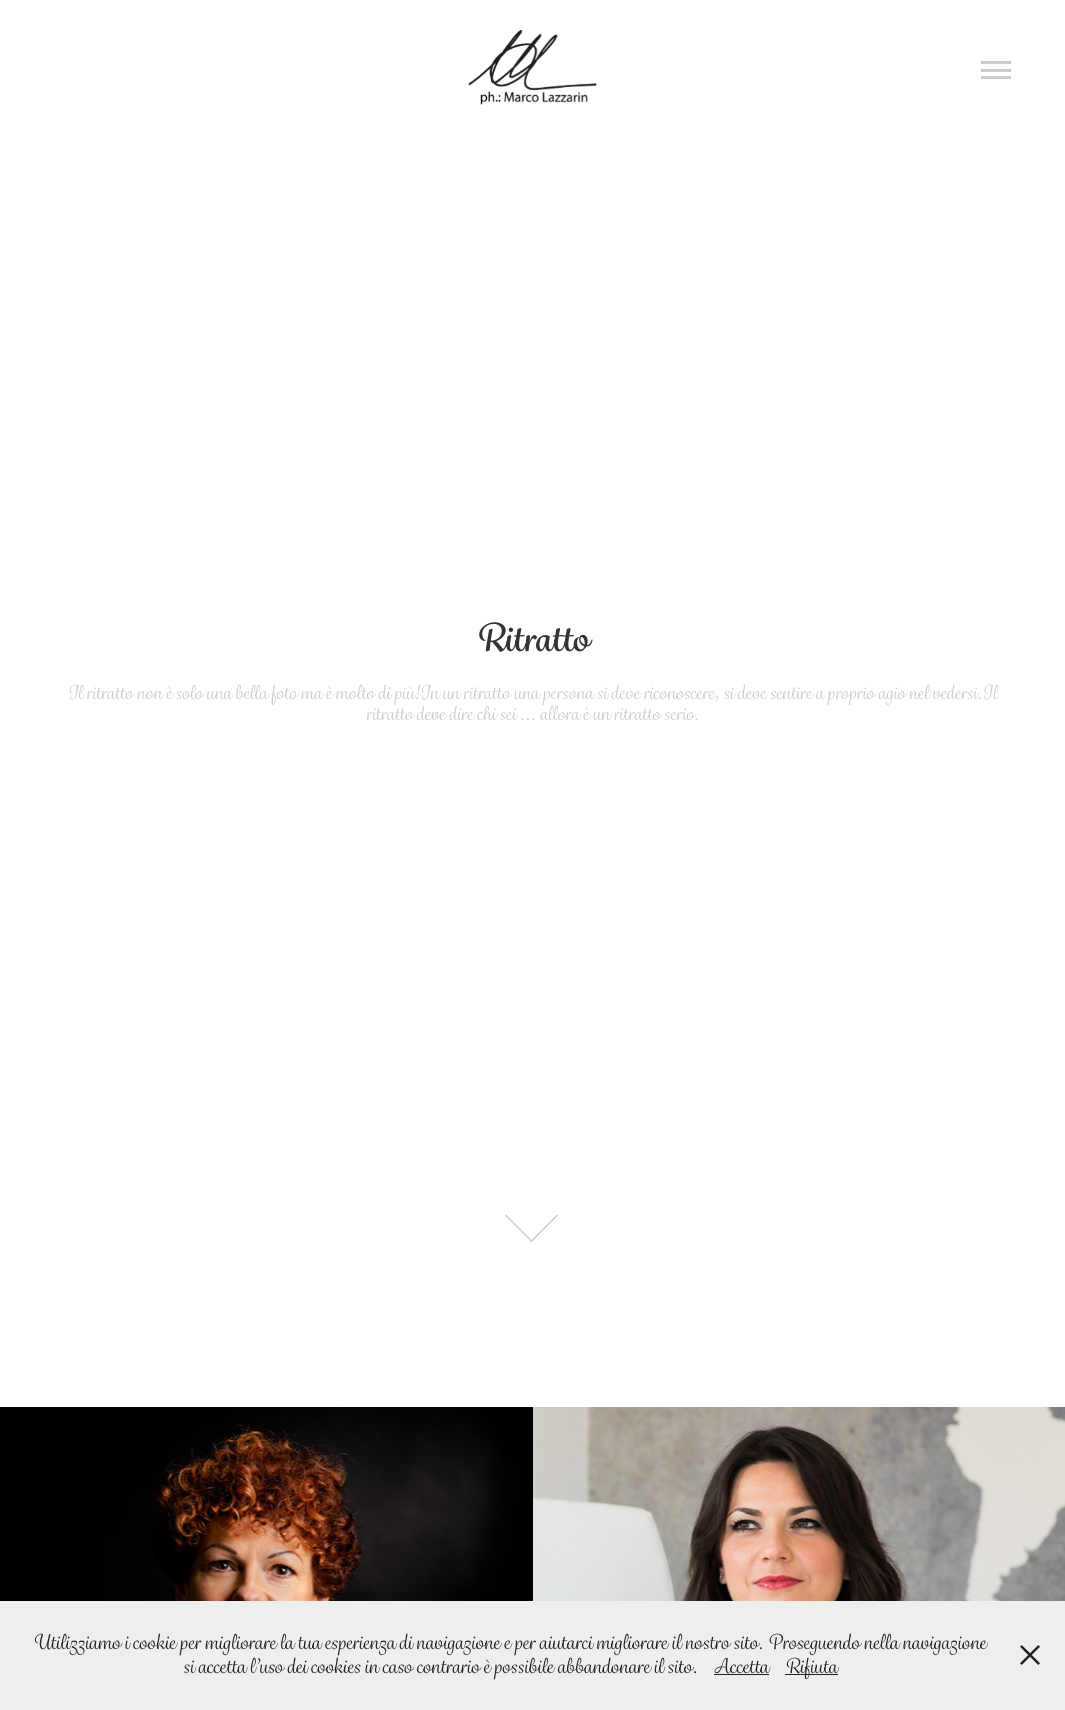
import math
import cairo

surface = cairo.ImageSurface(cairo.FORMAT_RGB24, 1065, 1710)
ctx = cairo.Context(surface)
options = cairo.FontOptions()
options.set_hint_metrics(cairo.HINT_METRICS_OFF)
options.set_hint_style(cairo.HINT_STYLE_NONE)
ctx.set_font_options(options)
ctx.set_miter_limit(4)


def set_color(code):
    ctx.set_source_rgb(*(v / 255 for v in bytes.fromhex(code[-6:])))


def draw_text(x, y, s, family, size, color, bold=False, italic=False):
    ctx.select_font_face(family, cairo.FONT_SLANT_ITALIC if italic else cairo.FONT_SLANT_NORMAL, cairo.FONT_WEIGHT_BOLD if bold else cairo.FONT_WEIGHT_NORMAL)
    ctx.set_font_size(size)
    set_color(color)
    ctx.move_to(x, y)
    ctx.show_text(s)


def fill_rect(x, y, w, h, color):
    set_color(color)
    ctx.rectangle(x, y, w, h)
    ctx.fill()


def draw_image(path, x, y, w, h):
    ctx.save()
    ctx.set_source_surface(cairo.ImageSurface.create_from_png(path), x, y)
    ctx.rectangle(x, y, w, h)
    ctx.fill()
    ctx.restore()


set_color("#ffffff")
ctx.paint()
draw_image("assets/img1.png", 468, 30, 129, 75)
fill_rect(981, 61, 30, 3, "#cccccc")
fill_rect(981, 69, 30, 3, "#cccccc")
fill_rect(981, 76, 30, 3, "#cccccc")
draw_text(476, 651, "Ritratto", "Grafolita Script", 37.5, "#333333", bold=True)
draw_text(68, 699, "Il ritratto non è solo una bella foto ma è molto di più!In un ritratto una persona si deve riconoscere, si deve sentire a proprio agio nel vedersi.Il", "Grafolita Script", 18.75, "#cccccc")
draw_text(366, 720, "ritratto deve dire chi sei ... allora è un ritratto serio.", "Grafolita Script", 18.75, "#cccccc")
ctx.new_path()
ctx.move_to(557, 1214.5)
ctx.line_to(558, 1215.5)
ctx.line_to(531.5, 1242)
ctx.line_to(530.5, 1241)
ctx.close_path()
ctx.fill()
ctx.new_path()
ctx.move_to(506, 1214.5)
ctx.line_to(532.5, 1241)
ctx.line_to(531.5, 1242)
ctx.line_to(505, 1215.5)
ctx.close_path()
ctx.fill()
draw_image("assets/img2.png", 0, 1407, 533, 194)
draw_image("assets/img3.png", 533, 1407, 532, 194)
fill_rect(0, 1601, 1065, 109, "#edeeee")
draw_text(33, 1649, "Utilizziamo i cookie per migliorare la tua esperienza di navigazione e per aiutarci migliorare il nostro sito. Proseguendo nella navigazione", "Grafolita Script", 20, "#212121")
draw_text(183, 1673, "si accetta l’uso dei cookies in caso contrario è possibile abbandonare il sito.", "Grafolita Script", 20, "#212121")
draw_text(714, 1673, "Accetta", "Grafolita Script", 20, "#212121")
fill_rect(714, 1674, 55, 1, "#212121")
fill_rect(785, 1674, 53, 1, "#212121")
draw_text(785, 1673, "Rifiuta", "Grafolita Script", 20, "#212121")
draw_image("assets/img4.png", 1020, 1645, 20, 20)
surface.write_to_png("output.png")
